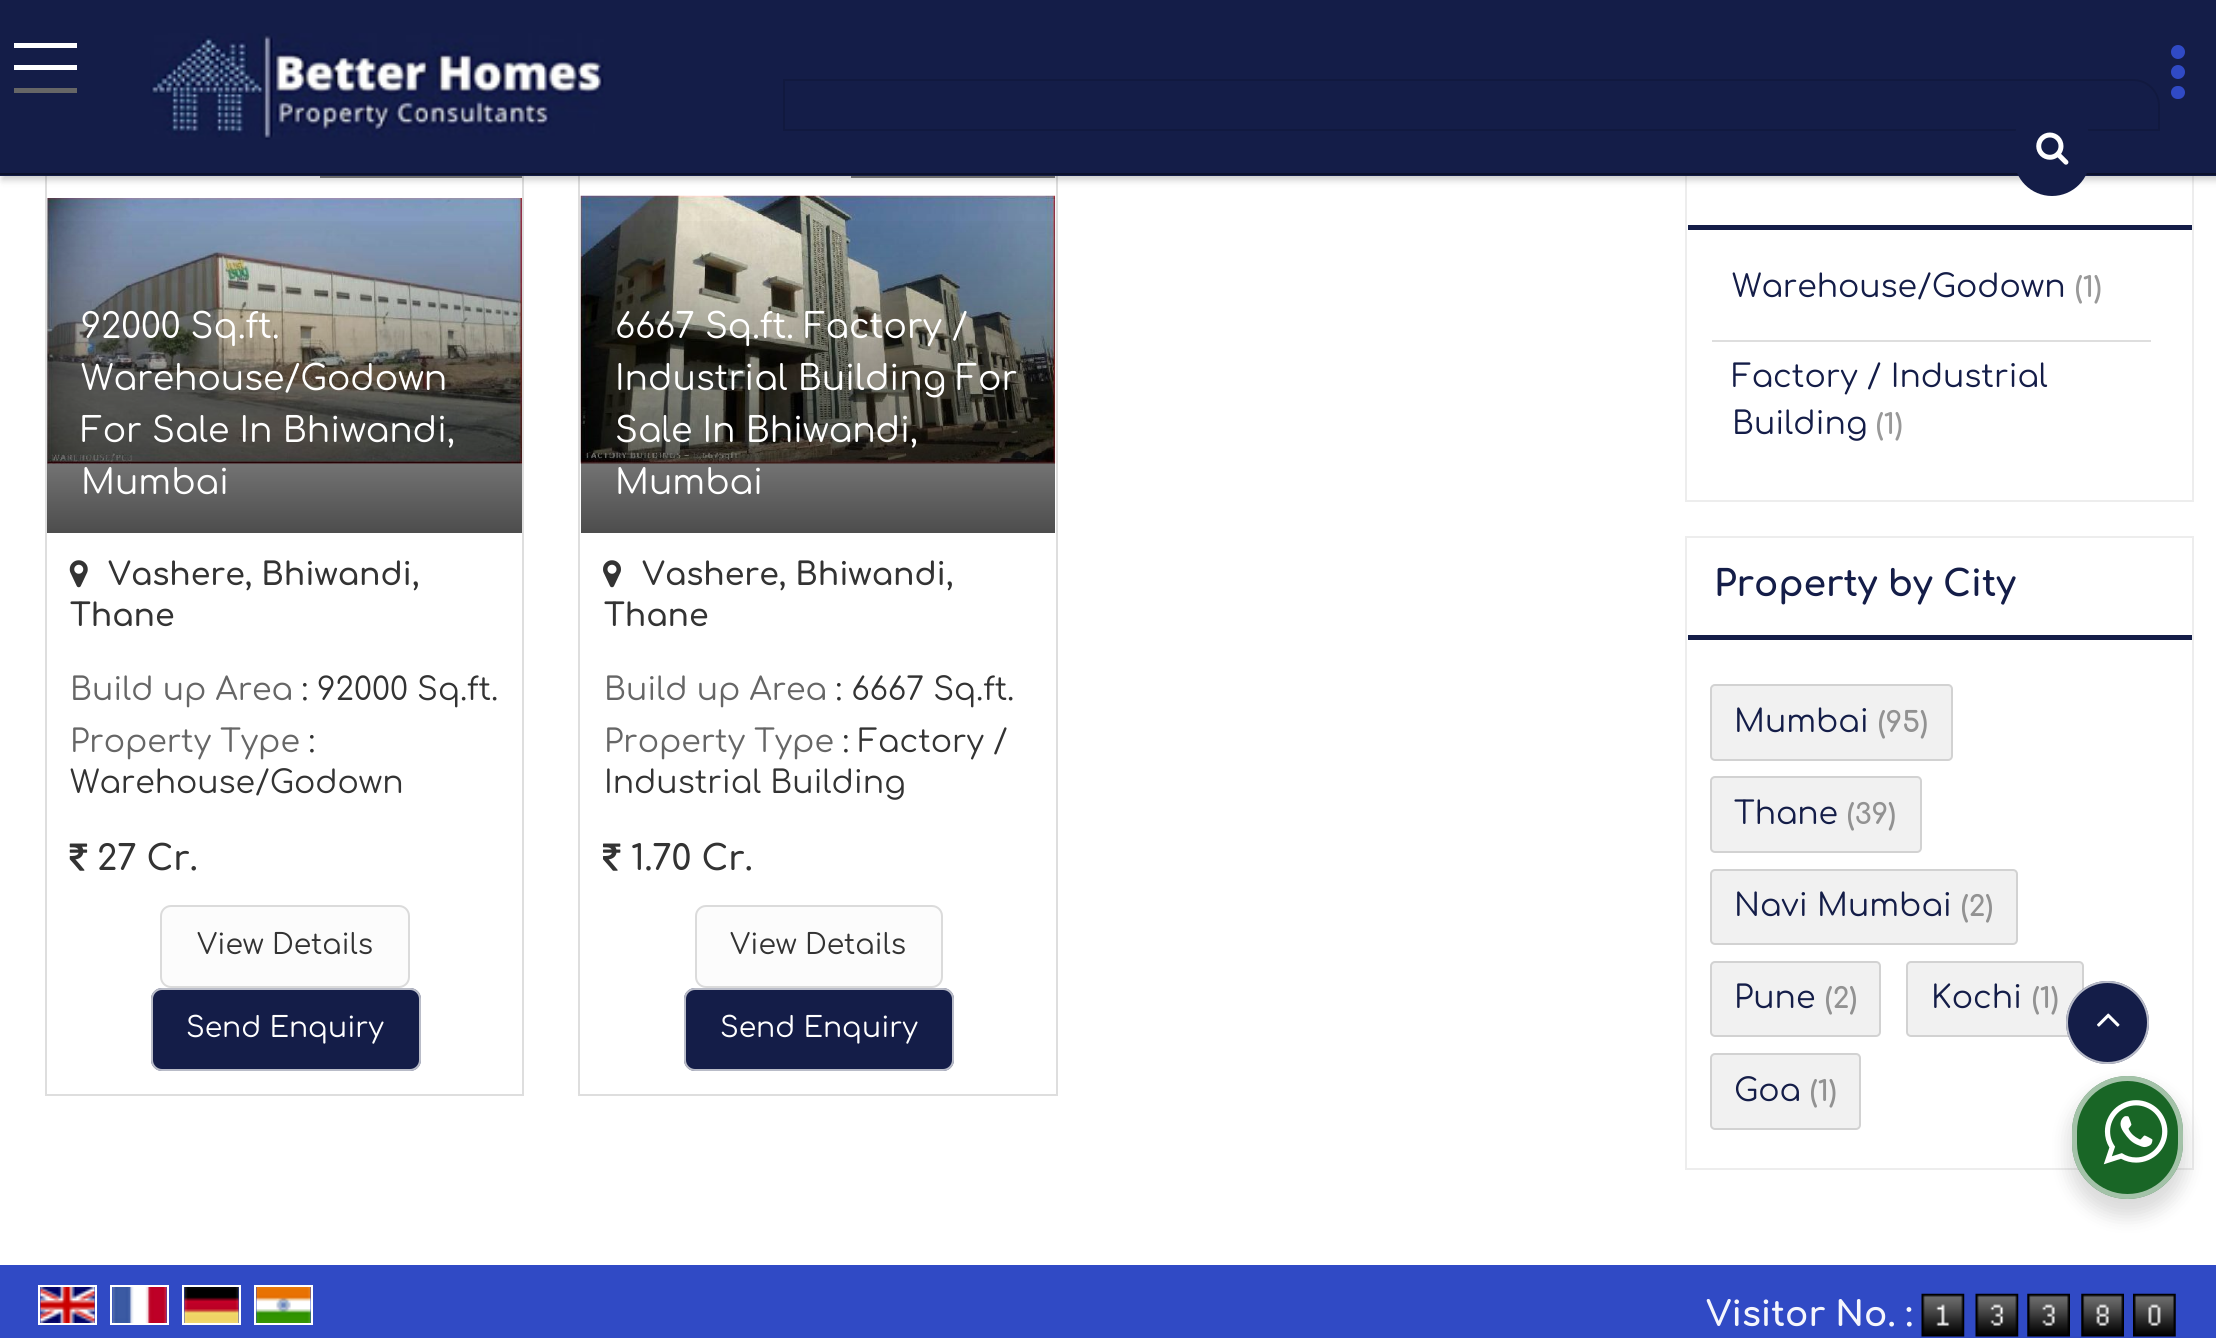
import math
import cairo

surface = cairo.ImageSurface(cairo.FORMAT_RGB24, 2216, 1338)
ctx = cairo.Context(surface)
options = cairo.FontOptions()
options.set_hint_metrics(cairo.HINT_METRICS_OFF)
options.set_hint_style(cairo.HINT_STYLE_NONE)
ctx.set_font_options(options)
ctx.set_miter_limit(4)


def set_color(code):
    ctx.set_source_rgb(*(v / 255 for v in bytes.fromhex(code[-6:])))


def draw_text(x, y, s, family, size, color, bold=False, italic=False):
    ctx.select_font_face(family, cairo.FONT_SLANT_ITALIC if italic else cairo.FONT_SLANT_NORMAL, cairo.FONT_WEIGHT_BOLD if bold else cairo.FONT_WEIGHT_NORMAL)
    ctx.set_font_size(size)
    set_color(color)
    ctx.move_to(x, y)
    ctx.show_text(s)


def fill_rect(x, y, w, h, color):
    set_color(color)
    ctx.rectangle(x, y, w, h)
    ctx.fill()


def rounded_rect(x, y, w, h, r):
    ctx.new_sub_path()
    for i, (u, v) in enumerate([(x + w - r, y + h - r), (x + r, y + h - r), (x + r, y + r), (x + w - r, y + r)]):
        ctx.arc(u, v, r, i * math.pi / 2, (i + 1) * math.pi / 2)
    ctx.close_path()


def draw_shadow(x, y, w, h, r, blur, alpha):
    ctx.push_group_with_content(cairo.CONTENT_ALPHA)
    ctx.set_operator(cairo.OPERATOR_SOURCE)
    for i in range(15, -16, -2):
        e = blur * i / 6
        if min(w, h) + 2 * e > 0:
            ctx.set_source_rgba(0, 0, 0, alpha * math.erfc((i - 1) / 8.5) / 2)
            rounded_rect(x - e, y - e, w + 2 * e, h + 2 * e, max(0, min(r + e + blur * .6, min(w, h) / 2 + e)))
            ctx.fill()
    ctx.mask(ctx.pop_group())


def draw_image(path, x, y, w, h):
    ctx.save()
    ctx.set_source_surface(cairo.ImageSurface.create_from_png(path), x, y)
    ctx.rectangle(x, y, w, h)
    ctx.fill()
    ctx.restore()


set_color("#ffffff")
ctx.paint()
ctx.rectangle(46, 127, 477, 968)
set_color("#dedede")
ctx.stroke()
fill_rect(320, 176, 202, 2, "#808080")
ctx.rectangle(579, 127, 478, 968)
set_color("#dedede")
ctx.stroke()
fill_rect(851, 176, 204, 2, "#808080")
ctx.rectangle(1686, 127, 507, 374)
set_color("#ededed")
ctx.stroke()
set_color("#000000")
draw_shadow(2, 5, 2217, 175, 0, 3.5, 0.2)
fill_rect(0, 0, 2216, 176, "#141d48")
fill_rect(0, 173, 2216, 2, "#0c112b")
draw_image("assets/img1.png", 150, 33, 455, 107)
ctx.new_path()
ctx.move_to(784, 80)
ctx.line_to(2133, 80)
ctx.curve_to(2147.5, 80, 2159, 91.5, 2159, 106)
ctx.line_to(2159, 130)
ctx.line_to(784, 130)
ctx.close_path()
set_color("#11193f")
ctx.stroke()
fill_rect(14, 65, 63, 5, "#ffffff")
fill_rect(14, 43, 63, 5, "#ffffff")
fill_rect(14, 88, 63, 5, "#666666")
set_color("#141d48")
rounded_rect(2014, 104, 76, 92, 38)
ctx.fill()
draw_image("assets/img2.png", 2036, 132, 33, 33)
set_color("#304ac5")
ctx.arc(2178, 72, 7, 0, 2 * math.pi)
ctx.fill()
ctx.arc(2178, 52, 7, 0, 2 * math.pi)
ctx.fill()
rounded_rect(2171, 86, 14, 13, 6.5)
ctx.fill()
draw_image("assets/img3.png", 47, 198, 475, 266)
gradient = cairo.LinearGradient(285, 211, 285, 533)
gradient.add_color_stop_rgba(0, 0, 0, 0, 0)
gradient.add_color_stop_rgba(1, 0, 0, 0, 0.7)
ctx.set_source(gradient)
ctx.rectangle(47, 221, 475, 312)
ctx.fill()
draw_text(81, 338, "92000 Sq.ft.", "Comfortaa", 34.6, "#ffffff")
draw_text(81, 390, "Warehouse/Godown", "Comfortaa", 34.6, "#ffffff")
draw_text(81, 442, "For Sale In Bhiwandi,", "Comfortaa", 34.6, "#ffffff")
draw_text(81, 494, "Mumbai", "Comfortaa", 34.6, "#ffffff")
draw_image("assets/img4.png", 69, 560, 19, 28)
draw_text(108, 585, "Vashere, Bhiwandi,", "Comfortaa SemiBold", 31.5, "#333333")
draw_text(70, 626, "Thane", "Comfortaa SemiBold", 31.5, "#333333")
draw_text(70, 700, "Build up Area", "Comfortaa", 31.5, "#666666")
draw_text(302, 700, ": 92000 Sq.ft.", "Comfortaa", 31.5, "#333333")
draw_text(70, 752, "Property Type", "Comfortaa", 31.5, "#666666")
draw_text(309, 752, ":", "Comfortaa", 31.5, "#333333")
draw_text(70, 793, "Warehouse/Godown", "Comfortaa", 31.5, "#333333")
draw_image("assets/img5.png", 69, 843, 19, 28)
draw_text(97, 870, "27 Cr.", "Comfortaa SemiBold", 34.6, "#333333")
set_color("#fcfcfc")
rounded_rect(161, 906, 248, 81, 10)
ctx.fill_preserve()
set_color("#dbdbdb")
ctx.stroke()
draw_text(197, 954, "View Details", "Comfortaa", 28.25, "#333333")
set_color("#141d48")
rounded_rect(151, 988, 270, 83, 11)
ctx.fill()
rounded_rect(152, 989, 268, 81, 10)
ctx.set_source_rgba(1, 1, 1, 0.7)
ctx.stroke()
draw_text(186, 1037, "Send Enquiry", "Comfortaa", 28.25, "#ffffff")
draw_image("assets/img6.png", 580, 195, 476, 269)
gradient = cairo.LinearGradient(818, 211, 818, 533)
gradient.add_color_stop_rgba(0, 0, 0, 0, 0)
gradient.add_color_stop_rgba(1, 0, 0, 0, 0.7)
ctx.set_source(gradient)
ctx.rectangle(581, 221, 474, 312)
ctx.fill()
draw_text(615, 338, "6667 Sq.ft. Factory /", "Comfortaa", 34.6, "#ffffff")
draw_text(615, 390, "Industrial Building For", "Comfortaa", 34.6, "#ffffff")
draw_text(615, 442, "Sale In Bhiwandi,", "Comfortaa", 34.6, "#ffffff")
draw_text(615, 494, "Mumbai", "Comfortaa", 34.6, "#ffffff")
draw_image("assets/img7.png", 603, 560, 18, 28)
draw_text(642, 585, "Vashere, Bhiwandi,", "Comfortaa SemiBold", 31.5, "#333333")
draw_text(604, 626, "Thane", "Comfortaa SemiBold", 31.5, "#333333")
draw_text(604, 700, "Build up Area", "Comfortaa", 31.5, "#666666")
draw_text(836, 700, ": 6667 Sq.ft.", "Comfortaa", 31.5, "#333333")
draw_text(604, 752, "Property Type", "Comfortaa", 31.5, "#666666")
draw_text(843, 752, ": Factory /", "Comfortaa", 31.5, "#333333")
draw_text(604, 793, "Industrial Building", "Comfortaa", 31.5, "#333333")
draw_image("assets/img8.png", 603, 843, 18, 28)
draw_text(631, 870, "1.70 Cr.", "Comfortaa SemiBold", 34.6, "#333333")
set_color("#fcfcfc")
rounded_rect(696, 906, 246, 81, 10)
ctx.fill_preserve()
set_color("#dbdbdb")
ctx.stroke()
draw_text(730, 954, "View Details", "Comfortaa", 28.25, "#333333")
set_color("#141d48")
rounded_rect(684, 988, 270, 83, 11)
ctx.fill()
rounded_rect(685, 989, 268, 81, 10)
ctx.set_source_rgba(1, 1, 1, 0.7)
ctx.stroke()
draw_text(720, 1037, "Send Enquiry", "Comfortaa", 28.25, "#ffffff")
fill_rect(1688, 225, 504, 5, "#141d48")
draw_text(1732, 297, "Warehouse/Godown", "Comfortaa", 31.5, "#141d48")
draw_text(2075, 297, "(1)", "Comfortaa", 28.25, "#999999", bold=True)
fill_rect(1712, 340, 439, 2, "#dedede")
draw_text(1732, 387, "Factory / Industrial", "Comfortaa", 31.5, "#141d48")
draw_text(1732, 434, "Building", "Comfortaa", 31.5, "#141d48")
draw_text(1876, 434, "(1)", "Comfortaa", 28.25, "#999999", bold=True)
ctx.rectangle(1686, 537, 507, 632)
set_color("#ededed")
ctx.stroke()
fill_rect(1688, 635, 504, 5, "#141d48")
draw_text(1714, 596, "Property by City", "Comfortaa", 36, "#141d48", bold=True)
set_color("#f1f1f1")
rounded_rect(1710, 684, 243, 77, 5)
ctx.fill()
rounded_rect(1711, 685, 241, 75, 4)
ctx.set_source_rgba(0, 0, 0, 0.13)
ctx.stroke()
draw_text(1734, 732, "Mumbai", "Comfortaa", 31.5, "#141d48")
draw_text(1878, 732, "(95)", "Comfortaa", 28.25, "#929292", bold=True)
set_color("#f1f1f1")
rounded_rect(1710, 776, 212, 77, 5)
ctx.fill()
rounded_rect(1711, 777, 210, 75, 4)
ctx.set_source_rgba(0, 0, 0, 0.13)
ctx.stroke()
draw_text(1734, 824, "Thane", "Comfortaa", 31.5, "#141d48")
draw_text(1847, 824, "(39)", "Comfortaa", 28.25, "#929292", bold=True)
set_color("#f1f1f1")
rounded_rect(1710, 869, 308, 76, 5)
ctx.fill()
rounded_rect(1711, 870, 306, 74, 4)
ctx.set_source_rgba(0, 0, 0, 0.13)
ctx.stroke()
draw_text(1734, 916, "Navi Mumbai", "Comfortaa", 31.5, "#141d48")
draw_text(1961, 916, "(2)", "Comfortaa", 28.25, "#929292", bold=True)
set_color("#f1f1f1")
rounded_rect(1710, 961, 171, 76, 5)
ctx.fill()
rounded_rect(1711, 962, 169, 74, 4)
ctx.set_source_rgba(0, 0, 0, 0.13)
ctx.stroke()
draw_text(1734, 1008, "Pune", "Comfortaa", 31.5, "#141d48")
draw_text(1825, 1008, "(2)", "Comfortaa", 28.25, "#929292", bold=True)
set_color("#f1f1f1")
rounded_rect(1906, 961, 178, 76, 5)
ctx.fill()
rounded_rect(1907, 962, 176, 74, 4)
ctx.set_source_rgba(0, 0, 0, 0.13)
ctx.stroke()
draw_text(1931, 1008, "Kochi", "Comfortaa", 31.5, "#141d48")
draw_text(2032, 1008, "(1)", "Comfortaa", 28.25, "#929292", bold=True)
set_color("#f1f1f1")
rounded_rect(1710, 1053, 151, 77, 5)
ctx.fill()
rounded_rect(1711, 1054, 149, 75, 4)
ctx.set_source_rgba(0, 0, 0, 0.13)
ctx.stroke()
draw_text(1734, 1101, "Goa", "Comfortaa", 31.5, "#141d48")
draw_text(1810, 1101, "(1)", "Comfortaa", 28.25, "#929292", bold=True)
fill_rect(0, 1265, 2216, 73, "#304ac5")
ctx.rectangle(39, 1286, 57, 38)
set_color("#ffffff")
ctx.stroke()
ctx.rectangle(111, 1286, 57, 38)
ctx.stroke()
ctx.rectangle(183, 1286, 57, 38)
ctx.stroke()
ctx.rectangle(255, 1286, 57, 38)
ctx.stroke()
draw_image("assets/img9.png", 40, 1287, 55, 36)
draw_image("assets/img10.png", 112, 1287, 55, 36)
draw_image("assets/img11.png", 184, 1287, 55, 36)
draw_image("assets/img12.png", 256, 1287, 55, 36)
draw_text(1706, 1326, "Visitor No. :", "Comfortaa", 34.6, "#f5f6fc", bold=True)
draw_image("assets/img13.png", 1921, 1293, 44, 44)
draw_image("assets/img14.png", 1975, 1293, 44, 44)
draw_image("assets/img15.png", 2027, 1293, 43, 44)
draw_image("assets/img16.png", 2081, 1293, 43, 44)
draw_image("assets/img17.png", 2133, 1293, 43, 44)
set_color("#141d48")
ctx.arc(2107.5, 1022.5, 41.5, 0, 2 * math.pi)
ctx.fill()
ctx.arc(2107.5, 1022.5, 40.5, 0, 2 * math.pi)
ctx.set_source_rgba(1, 1, 1, 0.7)
ctx.stroke()
draw_image("assets/img18.png", 2097, 1013, 23, 14)
set_color("#000000")
draw_shadow(2068, 1085, 119, 132, 59.5, 9, 0.14)
set_color("#196626")
rounded_rect(2072, 1076, 111, 123, 55.5)
ctx.fill()
rounded_rect(2074.5, 1078.5, 106, 118, 53)
ctx.set_source_rgba(1, 1, 1, 0.6)
ctx.set_line_width(5)
ctx.stroke()
draw_image("assets/img19.png", 2103, 1100, 65, 65)
surface.write_to_png("output.png")
